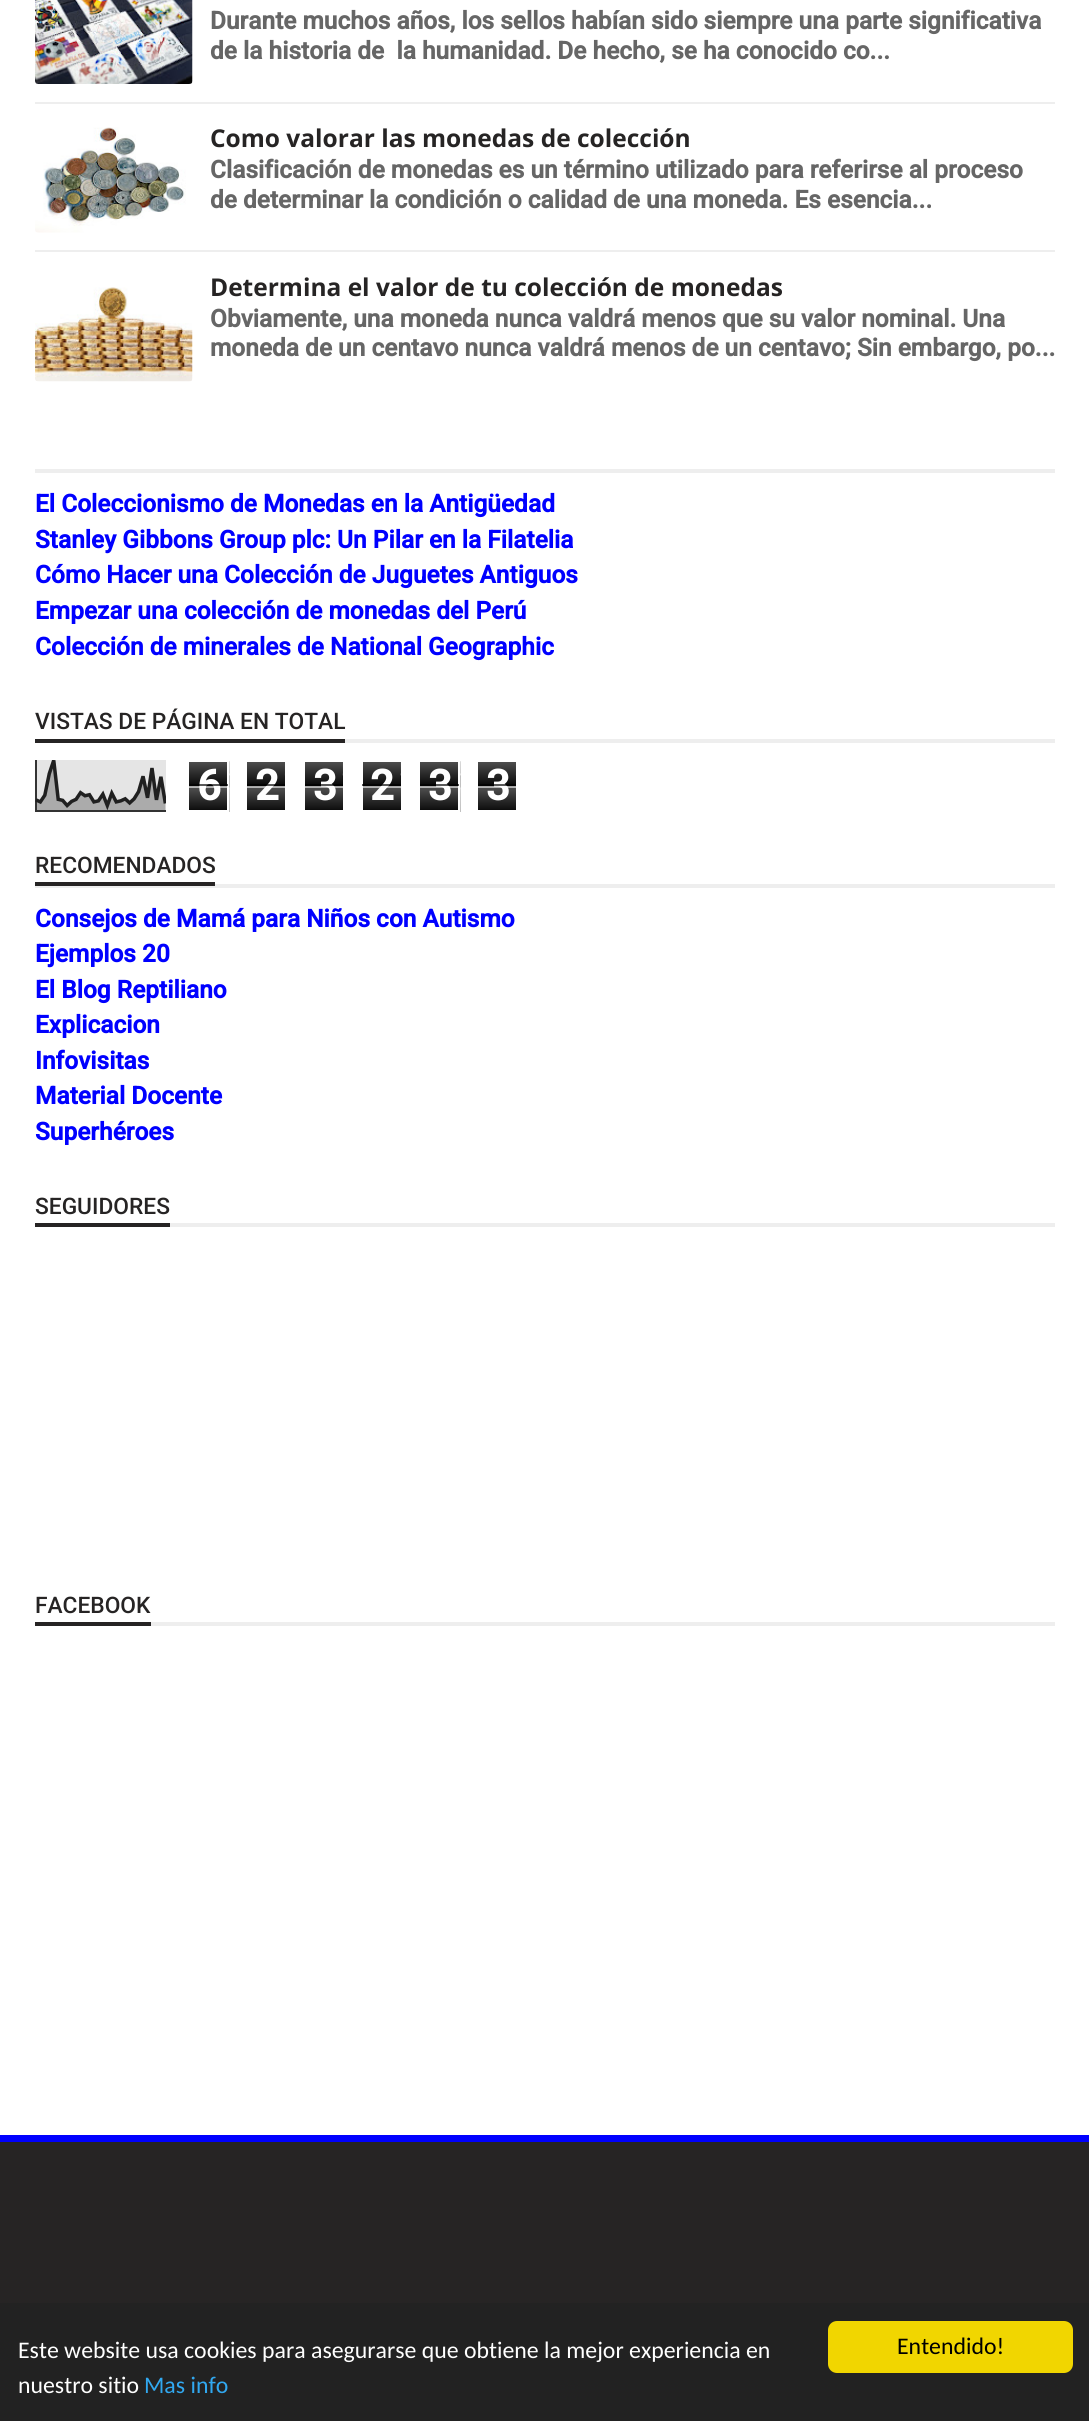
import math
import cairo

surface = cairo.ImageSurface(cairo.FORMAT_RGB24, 1089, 2421)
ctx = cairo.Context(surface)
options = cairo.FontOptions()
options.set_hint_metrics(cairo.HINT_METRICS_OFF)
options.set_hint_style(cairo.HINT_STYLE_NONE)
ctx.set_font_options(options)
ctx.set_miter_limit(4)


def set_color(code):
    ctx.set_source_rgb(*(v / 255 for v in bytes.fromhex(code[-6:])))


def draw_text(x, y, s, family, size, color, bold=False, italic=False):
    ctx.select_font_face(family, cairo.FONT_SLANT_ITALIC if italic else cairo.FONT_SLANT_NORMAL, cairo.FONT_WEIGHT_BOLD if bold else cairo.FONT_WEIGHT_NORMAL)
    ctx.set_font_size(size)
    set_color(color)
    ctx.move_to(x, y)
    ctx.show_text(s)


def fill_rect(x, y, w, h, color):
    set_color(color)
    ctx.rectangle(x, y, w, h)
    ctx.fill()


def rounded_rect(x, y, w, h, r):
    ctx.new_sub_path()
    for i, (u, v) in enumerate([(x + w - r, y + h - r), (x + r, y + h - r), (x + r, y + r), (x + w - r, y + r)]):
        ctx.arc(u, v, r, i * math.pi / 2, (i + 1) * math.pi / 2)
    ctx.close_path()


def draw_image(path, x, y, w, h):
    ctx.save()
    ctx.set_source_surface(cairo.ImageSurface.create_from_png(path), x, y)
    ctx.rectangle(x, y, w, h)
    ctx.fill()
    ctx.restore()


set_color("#ffffff")
ctx.paint()
draw_image("assets/img1.png", 35, 0, 158, 84)
draw_text(210, 29, "Durante muchos años, los sellos habían sido siempre una parte significativa", "Roboto", 24.5, "#666666", bold=True)
draw_text(210, 59, "de la historia de  la humanidad. De hecho, se ha conocido co...", "Roboto", 24.5, "#666666", bold=True)
fill_rect(35, 102, 1020, 2, "#eeeeee")
draw_image("assets/img2.png", 35, 127, 151, 106)
draw_text(210, 147, "Como valorar las monedas de colección", "Open Sans", 24.5, "#262424", bold=True)
draw_text(210, 178, "Clasificación de monedas es un término utilizado para referirse al proceso", "Roboto", 24.5, "#666666", bold=True)
draw_text(210, 208, "de determinar la condición o calidad de una moneda. Es esencia...", "Roboto", 24.5, "#666666", bold=True)
fill_rect(35, 250, 1020, 2, "#eeeeee")
draw_image("assets/img3.png", 35, 287, 158, 95)
draw_text(210, 296, "Determina el valor de tu colección de monedas", "Open Sans", 24.5, "#262424", bold=True)
draw_text(210, 327, "Obviamente, una moneda nunca valdrá menos que su valor nominal. Una", "Roboto", 24.5, "#666666", bold=True)
draw_text(210, 356, "moneda de un centavo nunca valdrá menos de un centavo; Sin embargo, po...", "Roboto", 24.5, "#666666", bold=True)
fill_rect(35, 469, 1020, 4, "#eeeeee")
draw_text(35, 512, "El Coleccionismo de Monedas en la Antigüedad", "Roboto", 24.5, "#0000ff", bold=True)
draw_text(35, 548, "Stanley Gibbons Group plc: Un Pilar en la Filatelia", "Roboto", 24.5, "#0000ff", bold=True)
draw_text(35, 583, "Cómo Hacer una Colección de Juguetes Antiguos", "Roboto", 24.5, "#0000ff", bold=True)
draw_text(35, 619, "Empezar una colección de monedas del Perú", "Roboto", 24.5, "#0000ff", bold=True)
draw_text(35, 655, "Colección de minerales de National Geographic", "Roboto", 24.5, "#0000ff", bold=True)
fill_rect(345, 739, 710, 4, "#eeeeee")
fill_rect(35, 739, 310, 4, "#262424")
draw_text(35, 729, "VISTAS DE PÁGINA EN TOTAL", "Roboto Medium", 22.75, "#262424")
draw_image("assets/img4.png", 35, 760, 131, 52)
draw_image("assets/img5.png", 189, 761, 41, 51)
ctx.rectangle(188, 761, 40, 50)
set_color("#ffffff")
ctx.stroke()
draw_text(197, 800, "6", "Roboto", 42, "#ffffff", bold=True)
ctx.set_source_rgba(0, 0, 0, 0.65)
ctx.rectangle(189, 784, 39, 2)
ctx.fill()
ctx.set_source_rgba(1, 1, 1, 0.65)
ctx.rectangle(189, 786, 39, 2)
ctx.fill()
draw_image("assets/img6.png", 247, 762, 38, 48)
draw_text(255, 800, "2", "Roboto", 42, "#ffffff", bold=True)
ctx.set_source_rgba(0, 0, 0, 0.65)
ctx.rectangle(247, 784, 38, 2)
ctx.fill()
ctx.set_source_rgba(1, 1, 1, 0.65)
ctx.rectangle(247, 786, 38, 2)
ctx.fill()
draw_image("assets/img7.png", 305, 762, 38, 48)
draw_text(313, 800, "3", "Roboto", 42, "#ffffff", bold=True)
ctx.set_source_rgba(0, 0, 0, 0.65)
ctx.rectangle(305, 784, 38, 2)
ctx.fill()
ctx.set_source_rgba(1, 1, 1, 0.65)
ctx.rectangle(305, 786, 38, 2)
ctx.fill()
draw_image("assets/img8.png", 363, 762, 38, 48)
draw_text(370, 800, "2", "Roboto", 42, "#ffffff", bold=True)
ctx.set_source_rgba(0, 0, 0, 0.65)
ctx.rectangle(362, 784, 39, 2)
ctx.fill()
ctx.set_source_rgba(1, 1, 1, 0.65)
ctx.rectangle(362, 786, 39, 2)
ctx.fill()
draw_image("assets/img5.png", 420, 761, 41, 51)
ctx.rectangle(419, 761, 40, 50)
set_color("#ffffff")
ctx.stroke()
draw_text(428, 800, "3", "Roboto", 42, "#ffffff", bold=True)
ctx.set_source_rgba(0, 0, 0, 0.65)
ctx.rectangle(420, 784, 39, 2)
ctx.fill()
ctx.set_source_rgba(1, 1, 1, 0.65)
ctx.rectangle(420, 786, 39, 2)
ctx.fill()
draw_image("assets/img6.png", 478, 762, 38, 48)
draw_text(486, 800, "3", "Roboto", 42, "#ffffff", bold=True)
ctx.set_source_rgba(0, 0, 0, 0.65)
ctx.rectangle(478, 784, 38, 2)
ctx.fill()
ctx.set_source_rgba(1, 1, 1, 0.65)
ctx.rectangle(478, 786, 38, 2)
ctx.fill()
fill_rect(35, 884, 1020, 4, "#eeeeee")
fill_rect(35, 882, 180, 4, "#262424")
draw_text(35, 873, "RECOMENDADOS", "Roboto Medium", 22.75, "#262424")
draw_text(35, 927, "Consejos de Mamá para Niños con Autismo", "Roboto", 24.5, "#0000ff", bold=True)
draw_text(35, 962, "Ejemplos 20", "Roboto", 24.5, "#0000ff", bold=True)
draw_text(35, 998, "El Blog Reptiliano", "Roboto", 24.5, "#0000ff", bold=True)
draw_text(35, 1033, "Explicacion", "Roboto", 24.5, "#0000ff", bold=True)
draw_text(35, 1069, "Infovisitas", "Roboto", 24.5, "#0000ff", bold=True)
draw_text(35, 1104, "Material Docente", "Roboto", 24.5, "#0000ff", bold=True)
draw_text(35, 1140, "Superhéroes", "Roboto", 24.5, "#0000ff", bold=True)
fill_rect(170, 1223, 885, 4, "#eeeeee")
fill_rect(35, 1223, 135, 4, "#262424")
draw_text(35, 1214, "SEGUIDORES", "Roboto Medium", 22.75, "#262424")
fill_rect(151, 1622, 904, 4, "#eeeeee")
fill_rect(35, 1622, 116, 4, "#262424")
draw_text(35, 1613, "FACEBOOK", "Roboto Medium", 22.75, "#262424")
fill_rect(0, 2142, 1089, 161, "#262424")
fill_rect(0, 2135, 1089, 7, "#0000ff")
fill_rect(0, 2303, 1089, 118, "#222222")
draw_text(18, 2358, "Este website usa cookies para asegurarse que obtiene la mejor experiencia en", "Carlito", 23.8, "#ffffff")
draw_text(18, 2393, "nuestro sitio", "Carlito", 23.8, "#ffffff")
draw_text(144, 2393, "Mas info", "Carlito", 23.8, "#31a8f0")
set_color("#f1d600")
rounded_rect(828, 2321, 245, 52, 9)
ctx.fill()
draw_text(897, 2354, "Entendido!", "Carlito", 23.8, "#000000")
surface.write_to_png("output.png")
